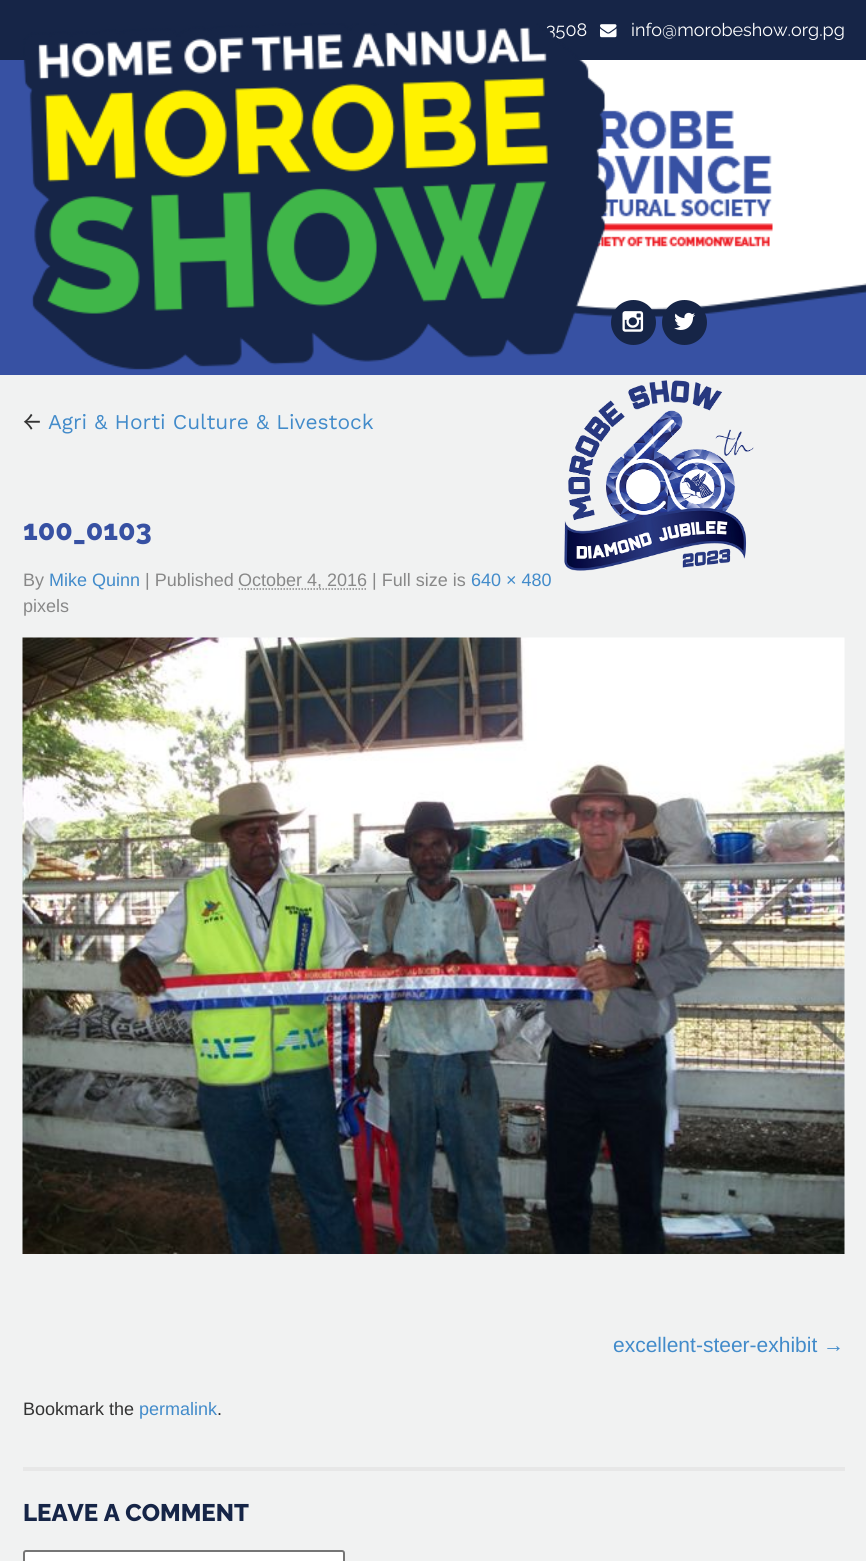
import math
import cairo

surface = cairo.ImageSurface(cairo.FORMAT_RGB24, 866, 1561)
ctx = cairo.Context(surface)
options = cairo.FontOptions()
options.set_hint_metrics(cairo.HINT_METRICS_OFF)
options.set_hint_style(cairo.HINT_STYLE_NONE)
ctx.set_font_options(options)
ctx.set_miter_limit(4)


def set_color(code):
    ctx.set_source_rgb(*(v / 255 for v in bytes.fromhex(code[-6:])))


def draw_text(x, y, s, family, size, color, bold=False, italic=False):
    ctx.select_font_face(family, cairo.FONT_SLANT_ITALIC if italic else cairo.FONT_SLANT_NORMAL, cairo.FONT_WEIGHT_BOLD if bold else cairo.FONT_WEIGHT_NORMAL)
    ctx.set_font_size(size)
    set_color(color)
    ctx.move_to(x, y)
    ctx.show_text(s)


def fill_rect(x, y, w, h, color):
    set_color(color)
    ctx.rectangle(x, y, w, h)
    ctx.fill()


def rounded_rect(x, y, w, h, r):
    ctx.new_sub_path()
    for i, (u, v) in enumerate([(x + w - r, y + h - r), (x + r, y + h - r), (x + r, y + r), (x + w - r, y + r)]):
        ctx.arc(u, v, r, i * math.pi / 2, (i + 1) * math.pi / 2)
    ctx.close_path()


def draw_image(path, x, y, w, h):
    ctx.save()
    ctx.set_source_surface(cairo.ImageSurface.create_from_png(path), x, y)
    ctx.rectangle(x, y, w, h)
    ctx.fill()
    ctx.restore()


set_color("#f1f2f2")
ctx.paint()
fill_rect(0, 0, 866, 60, "#162547")
draw_text(546, 36, "3508", "Raleway", 18, "#ffffff")
draw_image("assets/img1.png", 600, 24, 17, 14)
draw_text(631, 36, "info@morobeshow.org.pg", "Raleway", 18, "#ffffff")
fill_rect(0, 60, 866, 315, "#3751a3")
draw_image("assets/img2.png", 572, 60, 294, 257)
draw_image("assets/img3.png", 23, 23, 585, 347)
set_color("#162547")
ctx.arc(633.5, 322.5, 22.5, 0, 2 * math.pi)
ctx.fill()
draw_image("assets/img4.png", 622, 311, 22, 21)
ctx.arc(684.5, 322.5, 22.5, 0, 2 * math.pi)
ctx.fill()
draw_image("assets/img5.png", 674, 312, 21, 18)
draw_image("assets/img6.png", 564, 380, 190, 191)
draw_text(23, 429, "←", "Work Sans", 24, "#333333", italic=True)
draw_text(48, 429, "Agri & Horti Culture & Livestock", "Work Sans", 21, "#428bca")
fill_rect(23, 1467, 822, 4, "#e7e7e7")
draw_text(23, 540, "100_0103", "Raleway ExtraBold", 28.5, "#3751a3")
draw_text(23, 586, "By", "Liberation Sans", 18, "#888888")
draw_text(49, 586, "Mike Quinn", "Liberation Sans", 18, "#428bca")
draw_text(145, 586, "| Published", "Liberation Sans", 18, "#888888")
ctx.new_path()
ctx.move_to(238.5, 589)
ctx.line_to(367.5, 589)
ctx.set_line_width(1.5)
ctx.set_dash([1.5, 1.5])
ctx.stroke()
draw_text(238, 586, "October 4, 2016 | Full size is", "Liberation Sans", 18, "#888888")
draw_text(471, 586, "640 × 480", "Liberation Sans", 18, "#428bca")
draw_text(23, 612, "pixels", "Liberation Sans", 18, "#888888")
draw_image("assets/img7.png", 22, 637, 823, 617)
draw_text(613, 1352, "excellent-steer-exhibit →", "Liberation Sans", 21, "#428bca")
draw_text(23, 1415, "Bookmark the", "Liberation Sans", 18, "#333333")
draw_text(139, 1415, "permalink", "Liberation Sans", 18, "#428bca")
draw_text(217, 1415, ".", "Liberation Sans", 18, "#333333")
draw_text(23, 1521, "LEAVE A COMMENT", "Raleway ExtraBold", 24, "#162547")
set_color("#ffffff")
rounded_rect(24, 1551, 320, 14, 2)
ctx.fill_preserve()
set_color("#767676")
ctx.set_line_width(2)
ctx.set_dash([])
ctx.stroke()
surface.write_to_png("output.png")
